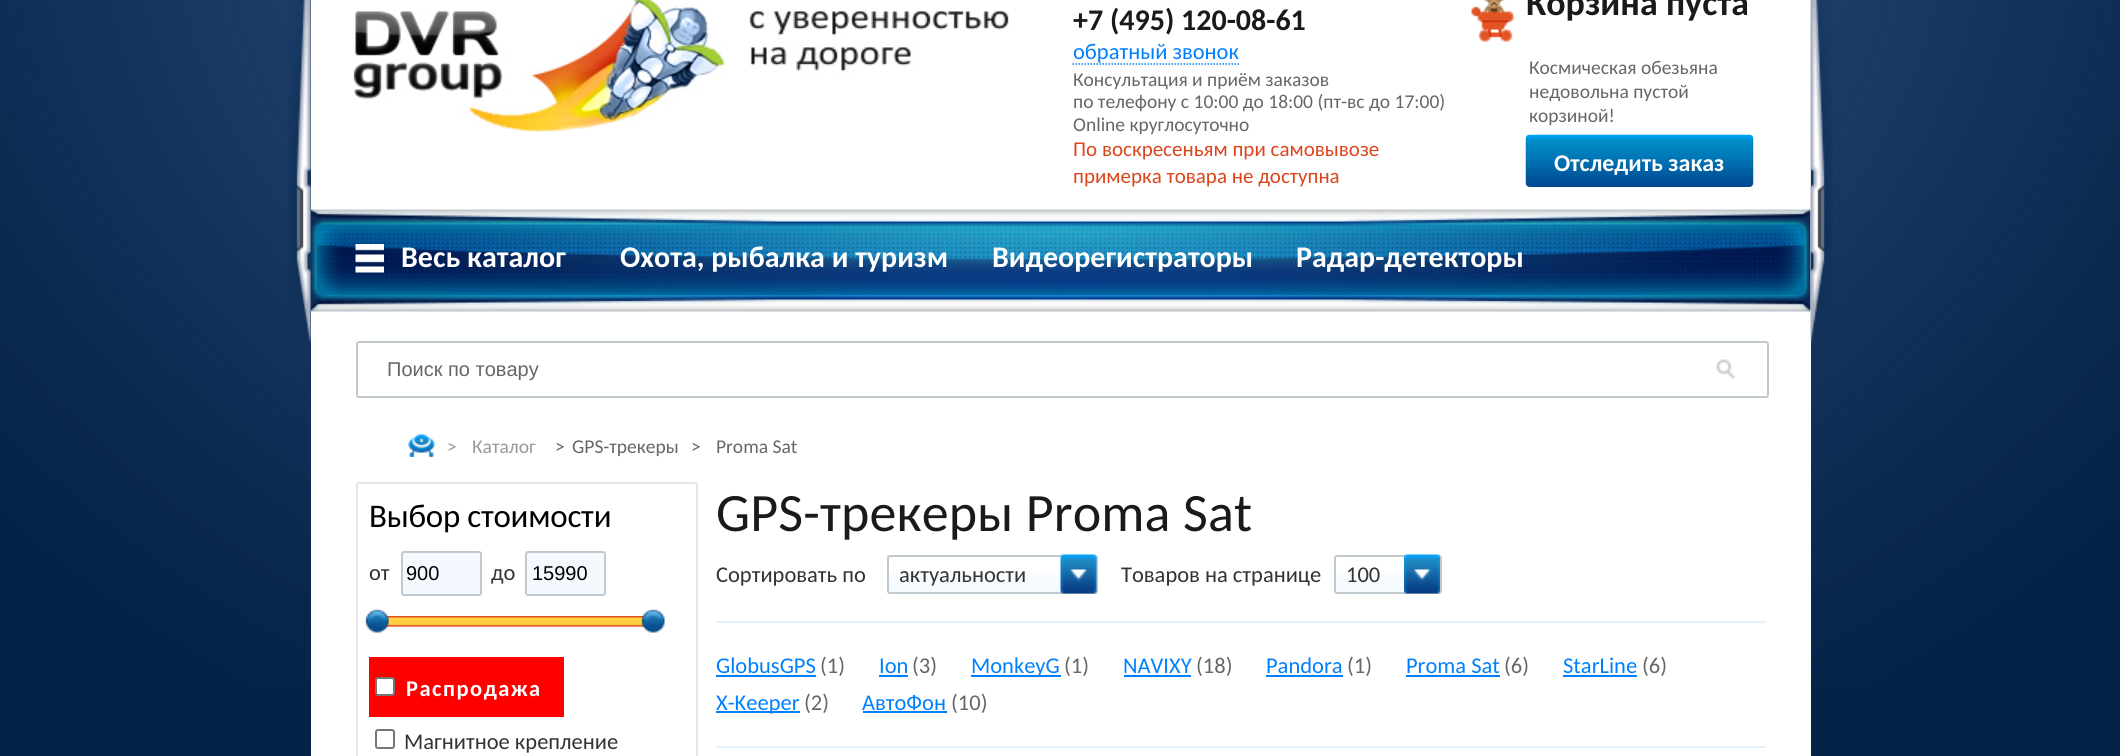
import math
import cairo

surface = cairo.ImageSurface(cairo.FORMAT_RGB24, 2120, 756)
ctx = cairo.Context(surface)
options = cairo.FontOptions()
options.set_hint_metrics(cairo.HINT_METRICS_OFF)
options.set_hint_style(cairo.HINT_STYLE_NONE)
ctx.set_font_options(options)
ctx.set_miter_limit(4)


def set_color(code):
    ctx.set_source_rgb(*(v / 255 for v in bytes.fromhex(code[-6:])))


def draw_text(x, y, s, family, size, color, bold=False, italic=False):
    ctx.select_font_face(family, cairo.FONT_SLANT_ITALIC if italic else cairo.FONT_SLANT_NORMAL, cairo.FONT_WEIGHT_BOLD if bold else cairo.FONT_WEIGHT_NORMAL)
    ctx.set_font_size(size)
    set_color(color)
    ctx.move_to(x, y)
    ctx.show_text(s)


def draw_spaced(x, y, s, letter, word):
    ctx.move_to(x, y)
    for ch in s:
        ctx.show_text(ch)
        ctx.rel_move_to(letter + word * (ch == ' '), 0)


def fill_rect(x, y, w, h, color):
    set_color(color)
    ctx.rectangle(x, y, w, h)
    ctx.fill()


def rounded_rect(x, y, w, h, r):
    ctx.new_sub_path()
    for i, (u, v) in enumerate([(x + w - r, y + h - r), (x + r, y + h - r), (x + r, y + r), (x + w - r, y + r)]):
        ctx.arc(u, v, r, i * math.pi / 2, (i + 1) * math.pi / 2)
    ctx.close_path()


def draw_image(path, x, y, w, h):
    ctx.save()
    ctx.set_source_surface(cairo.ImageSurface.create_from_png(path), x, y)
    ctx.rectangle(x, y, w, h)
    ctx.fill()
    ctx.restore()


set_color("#052247")
ctx.paint()
draw_image("assets/img1.png", 0, 0, 2120, 689)
fill_rect(311, 0, 1500, 756, "#ffffff")
draw_image("assets/img6.png", 310, 209, 1501, 103)
draw_image("assets/img2.png", 288, 0, 1545, 343)
draw_image("assets/img3.png", 353, 0, 656, 132)
draw_text(1073, 30, "+7 (495) 120-08-61", "Carlito", 30, "#1a1a1a", bold=True)
ctx.new_path()
ctx.move_to(1072.5, 64)
ctx.line_to(1239, 64)
set_color("#0080ff")
ctx.set_line_width(1.5)
ctx.set_dash([1.5, 1.5])
ctx.stroke()
draw_text(1073, 59, "обратный звонок", "Carlito", 22.5, "#0080ff")
draw_text(1073, 86, "Консультация и приём заказов", "Carlito", 19.5, "#666666")
draw_text(1073, 108, "по телефону с 10:00 до 18:00 (пт-вс до 17:00)", "Carlito", 19.5, "#666666")
draw_text(1073, 131, "Online круглосуточно", "Carlito", 19.5, "#666666")
draw_text(1073, 156, "По воскресеньям при самовывозе", "Carlito", 21, "#dc451b")
draw_text(1073, 183, "примерка товара не доступна", "Carlito", 21, "#dc451b")
draw_image("assets/img4.png", 1471, 0, 43, 42)
draw_text(1526, 15, "Корзина пуста", "Carlito", 36, "#1a1a1a", bold=True)
draw_text(1529, 74, "Космическая обезьяна", "Carlito", 19.5, "#666666")
draw_text(1529, 98, "недовольна пустой", "Carlito", 19.5, "#666666")
draw_text(1529, 122, "корзиной!", "Carlito", 19.5, "#666666")
draw_image("assets/img5.png", 1525, 134, 229, 53)
draw_text(1554, 171, "Отследить заказ", "Carlito", 24, "#ffffff", bold=True)
draw_image("assets/img7.png", 355, 244, 29, 29)
draw_text(401, 267, "Весь каталог", "Carlito", 30, "#ffffff", bold=True)
draw_text(620, 267, "Охота, рыбалка и туризм", "Carlito", 30, "#ffffff", bold=True)
draw_text(992, 267, "Видеорегистраторы", "Carlito", 30, "#ffffff", bold=True)
draw_text(1296, 267, "Радар-детекторы", "Carlito", 30, "#ffffff", bold=True)
rounded_rect(357, 342, 1411, 55, 2)
set_color("#c0c9ce")
ctx.set_line_width(2)
ctx.set_dash([])
ctx.stroke()
draw_text(387, 376, "Поиск по товару", "Liberation Sans", 20, "#666666")
draw_image("assets/img8.png", 1716, 359, 20, 20)
draw_image("assets/img9.png", 408, 434, 27, 23)
draw_text(447, 453, ">", "Carlito", 19.5, "#999999")
draw_text(472, 453, "Каталог", "Carlito", 19.5, "#999999")
draw_text(555, 453, ">", "Carlito", 19.5, "#666666")
draw_text(572, 453, "GPS-трекеры", "Carlito", 19.5, "#666666")
draw_text(691, 453, ">", "Carlito", 19.5, "#666666")
draw_text(716, 453, "Proma Sat", "Carlito", 19.5, "#666666")
rounded_rect(357, 483, 340, 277, 2)
set_color("#e5e5e5")
ctx.stroke()
ctx.set_font_size(33)
set_color("#000000")
draw_spaced(369, 527, "Выбор стоимости", -0.25, 0)
draw_text(369, 580, "от", "Carlito", 22.5, "#333333")
set_color("#f3f9ff")
rounded_rect(402, 552, 79, 43, 2)
ctx.fill_preserve()
set_color("#c0c9ce")
ctx.stroke()
ctx.save()
ctx.rectangle(407, 563, 69, 22)
ctx.clip()
draw_text(406, 580, "900", "Liberation Sans", 20, "#000000")
ctx.restore()
draw_text(491, 580, "до", "Carlito", 22.5, "#333333")
set_color("#f3f9ff")
rounded_rect(526, 552, 79, 43, 2)
ctx.fill_preserve()
set_color("#c0c9ce")
ctx.stroke()
draw_text(532, 580, "15990", "Liberation Sans", 20, "#000000")
draw_image("assets/img10.png", 385, 626, 261, 1)
draw_image("assets/img12.png", 385, 616, 261, 11)
draw_image("assets/img11.png", 365, 608, 24, 25)
draw_image("assets/img13.png", 641, 608, 24, 25)
fill_rect(369, 657, 195, 60, "#ff0000")
set_color("#ffffff")
rounded_rect(376, 678, 18, 17, 2)
ctx.fill_preserve()
set_color("#767676")
ctx.stroke()
ctx.select_font_face("Carlito", cairo.FONT_SLANT_NORMAL, cairo.FONT_WEIGHT_BOLD)
ctx.set_font_size(22.5)
set_color("#ffffff")
draw_spaced(406, 696, "Распродажа", 1.5, 0)
rounded_rect(376, 730, 18, 18, 2)
set_color("#767676")
ctx.stroke()
draw_text(404, 749, "Магнитное крепление", "Carlito", 22.5, "#333333")
ctx.set_font_size(54)
set_color("#1a1a1a")
draw_spaced(716, 531, "GPS-трекеры Proma Sat", 0.15, 0)
draw_text(716, 582, "Сортировать по", "Carlito", 22.5, "#333333")
draw_image("assets/img14.png", 887, 571, 211, 21)
rounded_rect(888, 556, 209, 37, 2)
set_color("#c0c9ce")
ctx.stroke()
draw_text(899, 582, "актуальности", "Carlito", 22.5, "#333333")
draw_image("assets/img15.png", 1060, 554, 37, 40)
draw_text(1121, 582, "Товаров на странице", "Carlito", 22.5, "#333333")
draw_image("assets/img16.png", 1334, 571, 106, 21)
rounded_rect(1335, 556, 106, 37, 2)
set_color("#c0c9ce")
ctx.stroke()
draw_text(1346, 582, "100", "Carlito", 22.5, "#333333")
draw_image("assets/img17.png", 1404, 554, 36, 40)
fill_rect(716, 621, 1050, 2, "#e5f2ff")
draw_text(716, 673, "GlobusGPS", "Carlito", 22.5, "#0080ff")
fill_rect(716, 675, 100, 2, "#0080ff")
draw_text(820, 673, "(1)", "Carlito", 22.5, "#666666")
draw_text(879, 673, "Ion", "Carlito", 22.5, "#0080ff")
fill_rect(879, 675, 29, 2, "#0080ff")
draw_text(912, 673, "(3)", "Carlito", 22.5, "#666666")
fill_rect(971, 675, 90, 2, "#0080ff")
draw_text(971, 673, "MonkeyG", "Carlito", 22.5, "#0080ff")
draw_text(1064, 673, "(1)", "Carlito", 22.5, "#666666")
draw_text(1123, 673, "NAVIXY", "Carlito", 22.5, "#0080ff")
fill_rect(1124, 675, 67, 2, "#0080ff")
draw_text(1196, 673, "(18)", "Carlito", 22.5, "#666666")
draw_text(1266, 673, "Pandora", "Carlito", 22.5, "#0080ff")
fill_rect(1266, 675, 77, 2, "#0080ff")
draw_text(1347, 673, "(1)", "Carlito", 22.5, "#666666")
draw_text(1406, 673, "Proma Sat", "Carlito", 22.5, "#0080ff")
fill_rect(1406, 675, 94, 2, "#0080ff")
draw_text(1504, 673, "(6)", "Carlito", 22.5, "#666666")
draw_text(1563, 673, "StarLine", "Carlito", 22.5, "#0080ff")
fill_rect(1563, 675, 74, 2, "#0080ff")
draw_text(1642, 673, "(6)", "Carlito", 22.5, "#666666")
fill_rect(716, 711, 84, 2, "#0080ff")
draw_text(716, 710, "X-Keeper", "Carlito", 22.5, "#0080ff")
draw_text(804, 710, "(2)", "Carlito", 22.5, "#666666")
draw_text(862, 710, "АвтоФон", "Carlito", 22.5, "#0080ff")
fill_rect(863, 711, 84, 2, "#0080ff")
draw_text(951, 710, "(10)", "Carlito", 22.5, "#666666")
fill_rect(716, 746, 1050, 2, "#e5f2ff")
surface.write_to_png("output.png")
